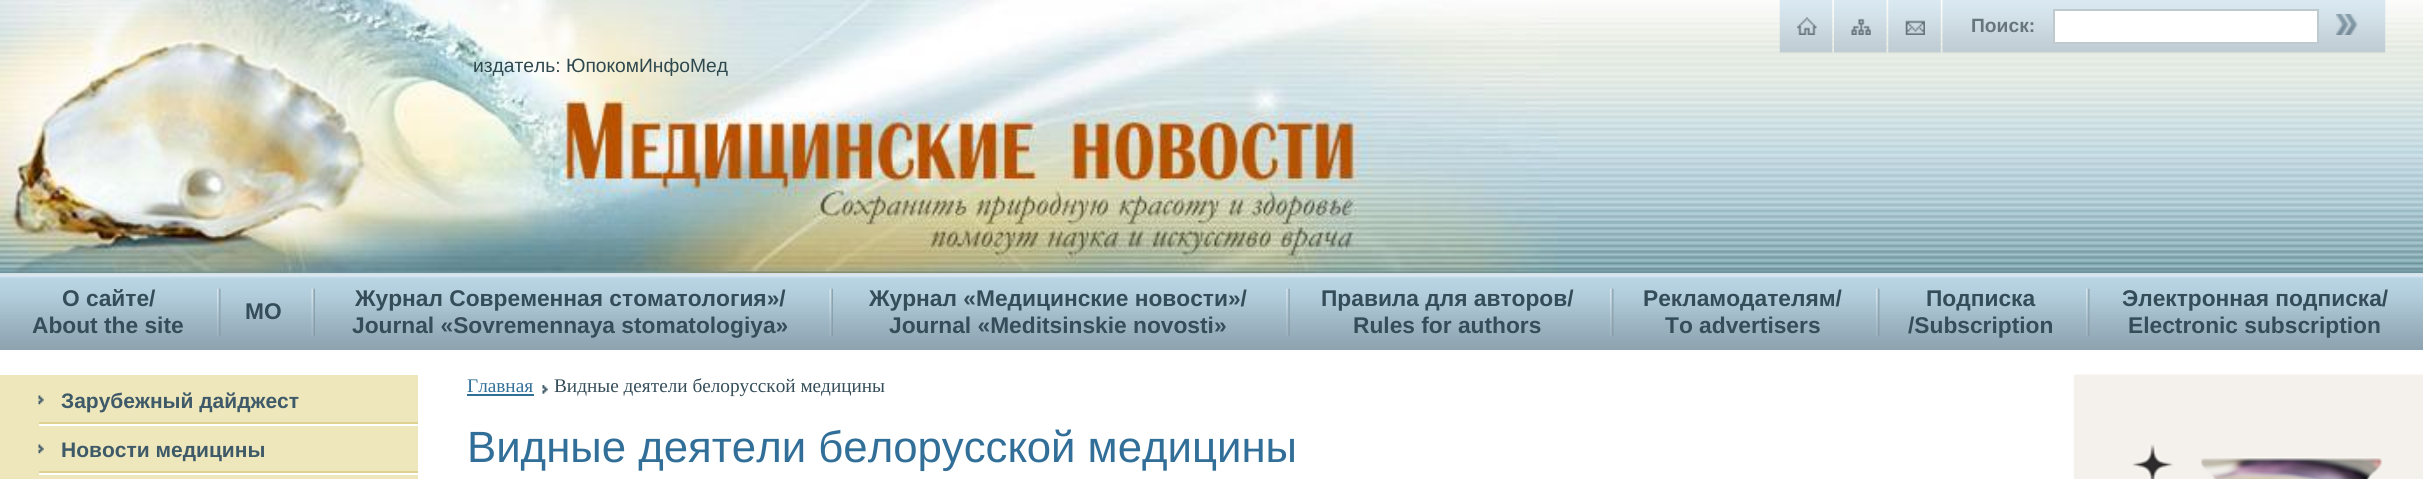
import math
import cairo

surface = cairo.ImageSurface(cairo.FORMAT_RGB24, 2423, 479)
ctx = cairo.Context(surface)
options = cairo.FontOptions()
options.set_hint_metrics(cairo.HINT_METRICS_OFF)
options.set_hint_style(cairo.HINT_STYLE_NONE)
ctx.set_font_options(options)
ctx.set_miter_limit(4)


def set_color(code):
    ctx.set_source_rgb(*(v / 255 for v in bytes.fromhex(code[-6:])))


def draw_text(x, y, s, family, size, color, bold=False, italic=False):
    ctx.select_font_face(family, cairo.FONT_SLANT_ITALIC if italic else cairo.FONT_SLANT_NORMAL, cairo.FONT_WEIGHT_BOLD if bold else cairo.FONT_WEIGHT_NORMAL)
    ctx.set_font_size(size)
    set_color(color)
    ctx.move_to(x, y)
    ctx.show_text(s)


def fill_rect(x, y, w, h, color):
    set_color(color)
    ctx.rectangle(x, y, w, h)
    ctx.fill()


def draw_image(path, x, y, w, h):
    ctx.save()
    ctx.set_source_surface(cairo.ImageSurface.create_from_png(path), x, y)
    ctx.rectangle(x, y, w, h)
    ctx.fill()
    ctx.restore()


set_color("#ffffff")
ctx.paint()
draw_image("assets/img1.png", 1557, 0, 866, 273)
draw_image("assets/img2.png", 0, 0, 1558, 273)
draw_image("assets/img3.png", 1779, 0, 54, 53)
draw_image("assets/img4.png", 1797, 17, 20, 18)
draw_image("assets/img5.png", 1834, 0, 53, 53)
draw_image("assets/img6.png", 1851, 18, 20, 17)
draw_image("assets/img7.png", 1888, 0, 53, 53)
draw_image("assets/img8.png", 1905, 20, 20, 15)
draw_image("assets/img9.png", 1942, 0, 444, 53)
draw_text(1971, 32, "Поиск:", "Liberation Sans", 19.25, "#67757d", bold=True)
set_color("#ffffff")
ctx.rectangle(2054, 10, 264, 33)
ctx.fill_preserve()
set_color("#bfc9d0")
ctx.stroke()
draw_image("assets/img10.png", 2336, 14, 22, 21)
draw_text(473, 72, "издатель: ЮпокомИнфоМед", "Liberation Sans", 19.25, "#2e484e")
draw_image("assets/img11.png", 0, 273, 2423, 77)
draw_text(62, 306, "О сайте/", "Liberation Sans", 22.75, "#354d59", bold=True)
draw_text(32, 333, "About the site", "Liberation Sans", 22.75, "#354d59", bold=True)
draw_image("assets/img12.png", 217, 288, 4, 48)
draw_text(245, 319, "МО", "Liberation Sans", 22.75, "#354d59", bold=True)
draw_image("assets/img13.png", 311, 288, 4, 48)
draw_text(355, 306, "Журнал Современная стоматология»/", "Liberation Sans", 22.75, "#354d59", bold=True)
draw_text(352, 333, "Journal «Sovremennaya stomatologiya»", "Liberation Sans", 22.75, "#354d59", bold=True)
draw_image("assets/img13.png", 829, 288, 4, 48)
draw_text(869, 306, "Журнал «Медицинские новости»/", "Liberation Sans", 22.75, "#354d59", bold=True)
draw_text(889, 333, "Journal «Meditsinskie novosti»", "Liberation Sans", 22.75, "#354d59", bold=True)
draw_image("assets/img14.png", 1286, 288, 4, 48)
draw_text(1321, 306, "Правила для авторов/", "Liberation Sans", 22.75, "#354d59", bold=True)
draw_text(1353, 333, "Rules for authors", "Liberation Sans", 22.75, "#354d59", bold=True)
draw_image("assets/img12.png", 1610, 288, 4, 48)
draw_text(1643, 306, "Рекламодателям/", "Liberation Sans", 22.75, "#354d59", bold=True)
draw_text(1665, 333, "To advertisers", "Liberation Sans", 22.75, "#354d59", bold=True)
draw_image("assets/img12.png", 1876, 288, 4, 48)
draw_text(1926, 306, "Подписка", "Liberation Sans", 22.75, "#354d59", bold=True)
draw_text(1908, 333, "/Subscription", "Liberation Sans", 22.75, "#354d59", bold=True)
draw_image("assets/img12.png", 2086, 288, 4, 48)
draw_text(2122, 306, "Электронная подписка/", "Liberation Sans", 22.75, "#354d59", bold=True)
draw_text(2128, 333, "Electronic subscription", "Liberation Sans", 22.75, "#354d59", bold=True)
fill_rect(0, 375, 418, 104, "#eee7bc")
draw_image("assets/img15.png", 38, 395, 6, 10)
fill_rect(39, 422, 379, 2, "#ded292")
draw_text(61, 408, "Зарубежный дайджест", "Liberation Sans", 21, "#3e5967", bold=True)
draw_image("assets/img15.png", 38, 444, 6, 10)
fill_rect(39, 424, 379, 2, "#ffffff")
fill_rect(39, 471, 379, 2, "#ded292")
draw_text(61, 457, "Новости медицины", "Liberation Sans", 21, "#3e5967", bold=True)
fill_rect(39, 473, 379, 2, "#ffffff")
draw_text(467, 392, "Главная", "Liberation Serif", 19.25, "#316f98")
fill_rect(467, 394, 67, 2, "#316f98")
draw_image("assets/img16.png", 542, 385, 6, 9)
draw_text(554, 392, "Видные деятели белорусской медицины", "Liberation Serif", 19.25, "#354d59")
draw_text(467, 462, "Видные деятели белорусской медицины", "Liberation Sans", 43.75, "#316f98")
draw_image("assets/img17.png", 2073, 374, 350, 105)
surface.write_to_png("output.png")
